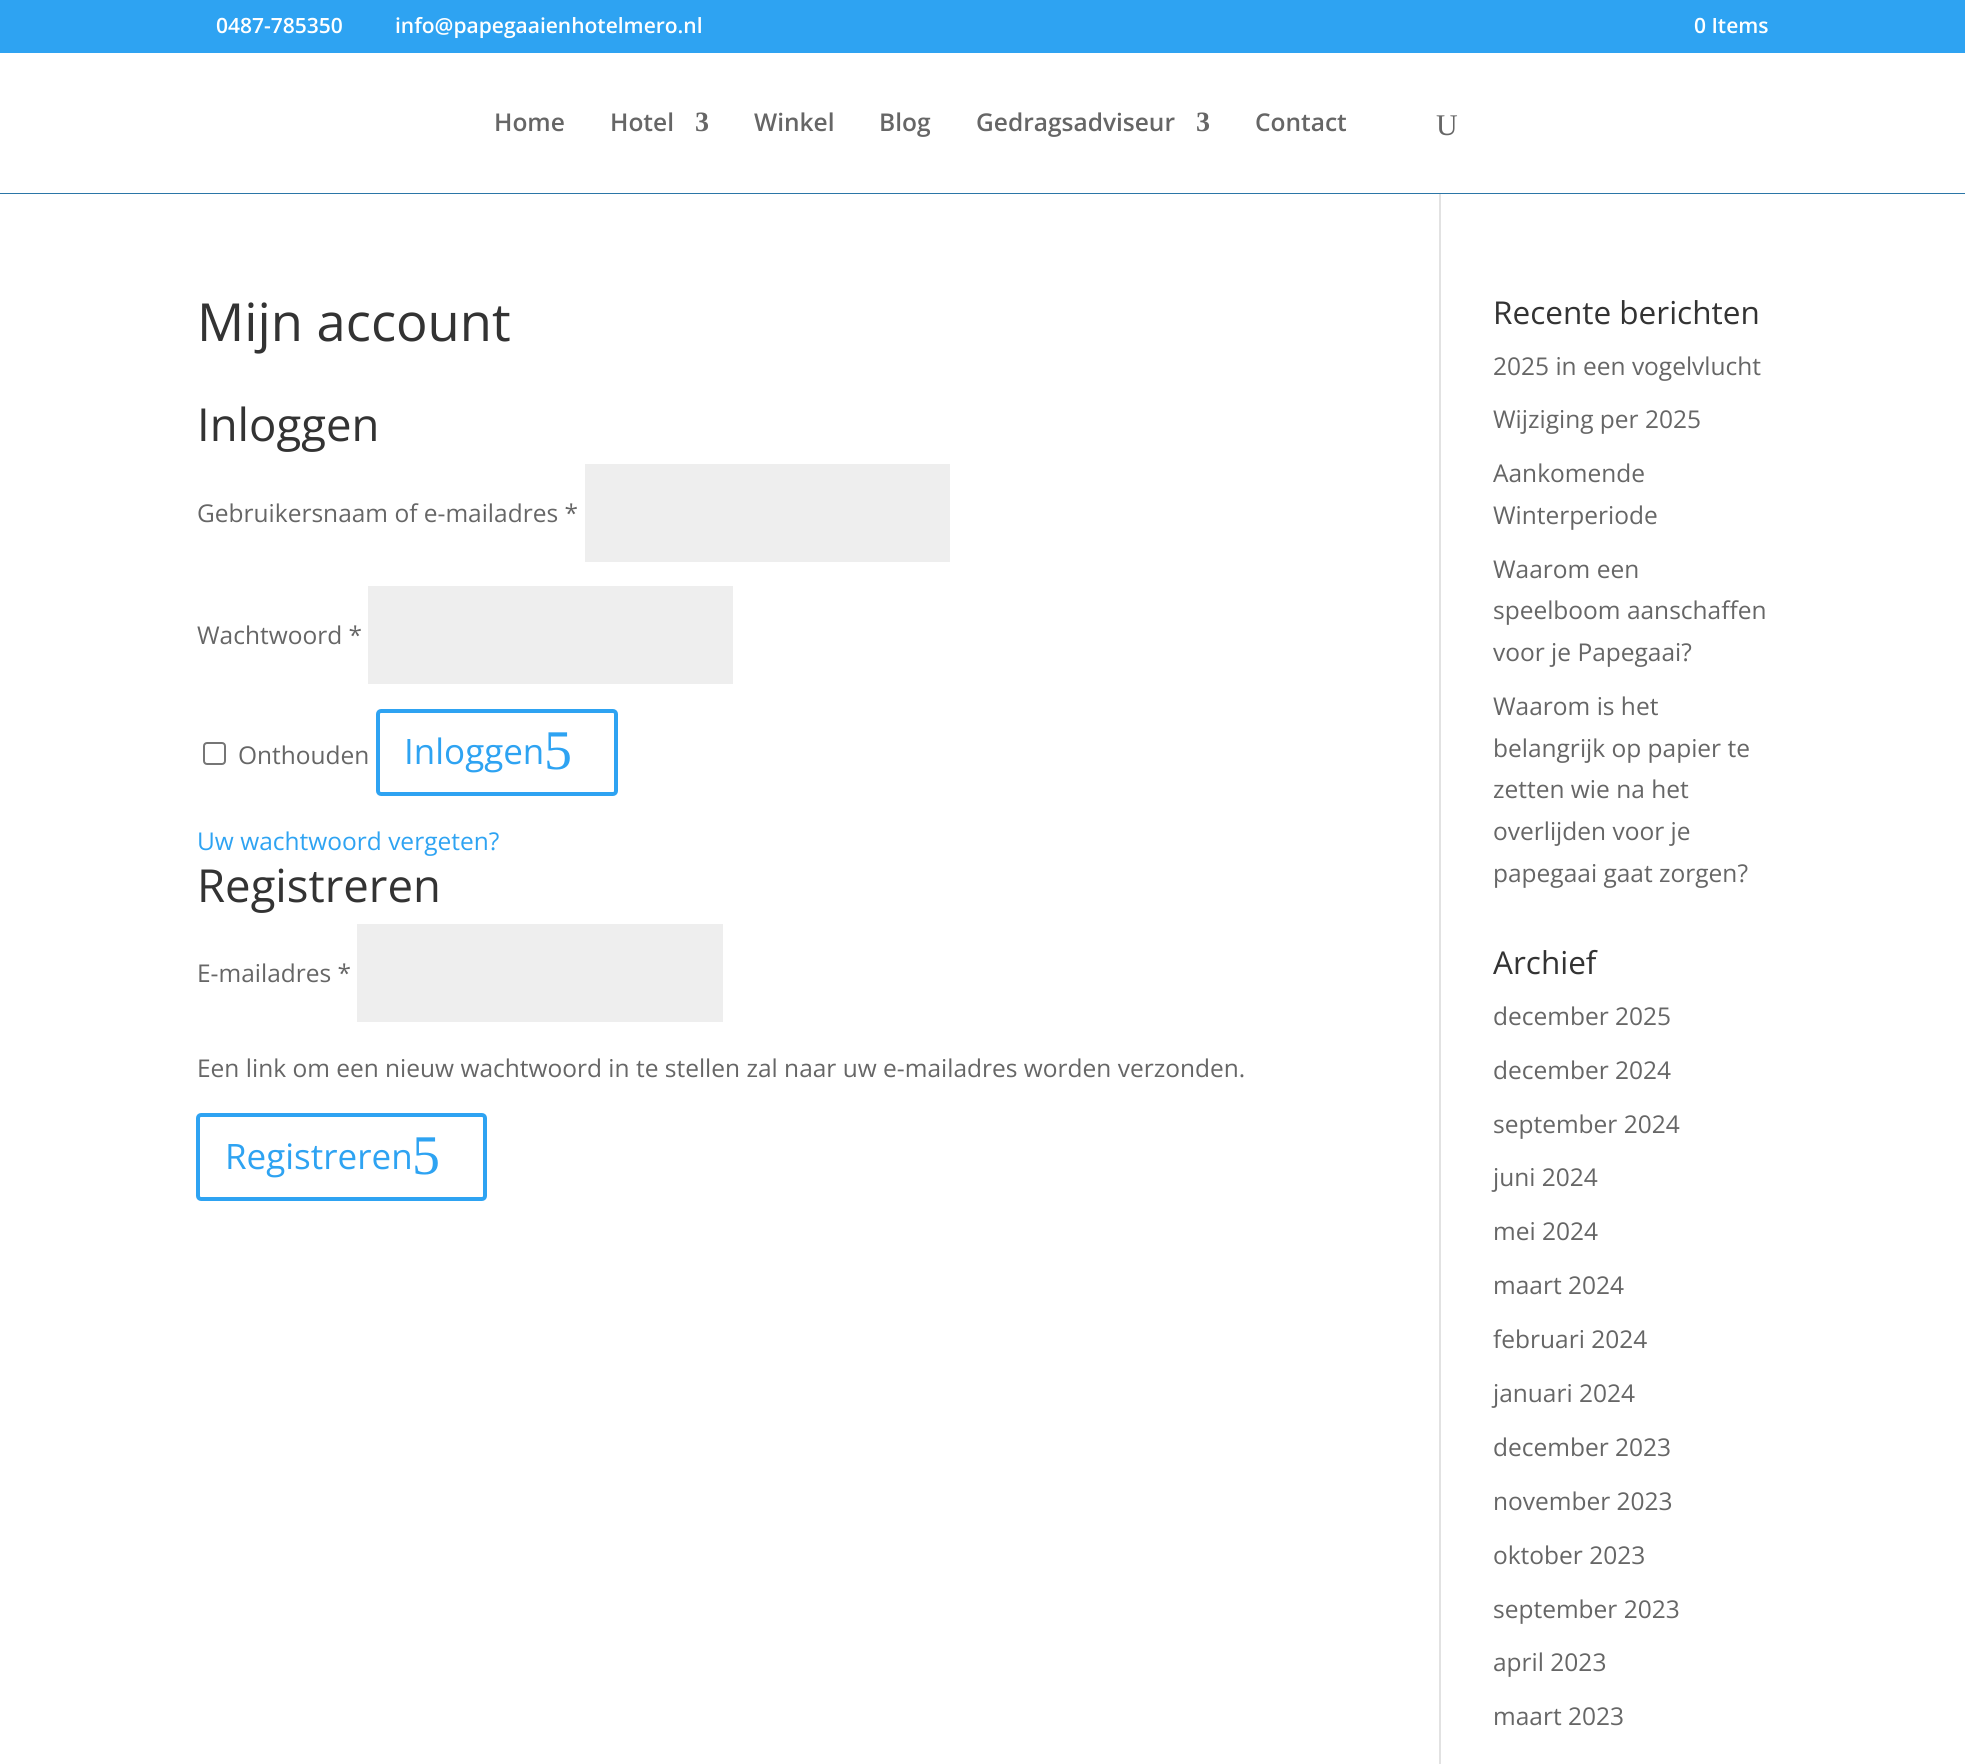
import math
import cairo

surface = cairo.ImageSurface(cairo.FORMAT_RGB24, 1965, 1764)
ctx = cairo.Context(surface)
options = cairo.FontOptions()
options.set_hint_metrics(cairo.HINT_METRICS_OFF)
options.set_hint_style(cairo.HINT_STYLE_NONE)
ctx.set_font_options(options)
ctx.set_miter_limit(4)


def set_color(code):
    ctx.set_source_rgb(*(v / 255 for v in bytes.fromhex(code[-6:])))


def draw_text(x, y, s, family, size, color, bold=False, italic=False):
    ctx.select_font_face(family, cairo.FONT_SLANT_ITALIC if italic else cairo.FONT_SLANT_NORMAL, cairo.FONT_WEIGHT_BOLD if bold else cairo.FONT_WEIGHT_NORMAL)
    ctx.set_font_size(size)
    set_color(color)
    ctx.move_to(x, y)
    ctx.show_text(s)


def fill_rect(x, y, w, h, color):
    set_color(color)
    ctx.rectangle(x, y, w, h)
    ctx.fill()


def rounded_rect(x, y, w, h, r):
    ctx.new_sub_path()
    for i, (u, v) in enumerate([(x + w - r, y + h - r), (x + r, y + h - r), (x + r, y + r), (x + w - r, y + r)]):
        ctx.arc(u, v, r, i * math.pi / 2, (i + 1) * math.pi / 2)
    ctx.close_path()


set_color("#ffffff")
ctx.paint()
fill_rect(0, 0, 1965, 53, "#2ea3f2")
draw_text(216, 33, "0487-785350", "Open Sans SemiBold", 21, "#ffffff")
draw_text(395, 33, "info@papegaaienhotelmero.nl", "Open Sans SemiBold", 21, "#ffffff")
draw_text(1694, 33, "0 Items", "Open Sans SemiBold", 21, "#ffffff")
fill_rect(0, 193, 1965, 1, "#2b76a7")
draw_text(494, 131, "Home", "Open Sans SemiBold", 24.5, "#666666")
draw_text(610, 131, "Hotel", "Open Sans SemiBold", 24.5, "#666666")
draw_text(695, 131, "3", "Liberation Serif", 28, "#666666", bold=True)
draw_text(754, 131, "Winkel", "Open Sans SemiBold", 24.5, "#666666")
draw_text(879, 131, "Blog", "Open Sans SemiBold", 24.5, "#666666")
draw_text(976, 131, "Gedragsadviseur", "Open Sans SemiBold", 24.5, "#666666")
draw_text(1196, 131, "3", "Liberation Serif", 28, "#666666", bold=True)
draw_text(1255, 131, "Contact", "Open Sans SemiBold", 24.5, "#666666")
draw_text(1436, 135, "U", "Liberation Serif", 30, "#666666")
fill_rect(1439, 194, 2, 1570, "#e2e2e2")
draw_text(197, 341, "Mijn account", "Open Sans", 52.5, "#333333")
draw_text(197, 441, "Inloggen", "Open Sans", 45.5, "#333333")
draw_text(197, 522, "Gebruikersnaam of e-mailadres *", "Open Sans", 24.5, "#666666")
fill_rect(585, 464, 365, 98, "#eeeeee")
draw_text(197, 644, "Wachtwoord *", "Open Sans", 24.5, "#666666")
fill_rect(368, 586, 365, 98, "#eeeeee")
rounded_rect(204, 743, 21, 21, 3)
set_color("#767676")
ctx.stroke()
draw_text(238, 764, "Onthouden", "Open Sans", 24.5, "#666666")
rounded_rect(378, 711, 238, 83, 3)
set_color("#2ea3f2")
ctx.set_line_width(4)
ctx.stroke()
draw_text(404, 764, "Inloggen", "Open Sans", 35, "#2ea3f2")
draw_text(544, 769, "5", "Liberation Serif", 56, "#2ea3f2")
draw_text(197, 850, "Uw wachtwoord vergeten?", "Open Sans", 24.5, "#2ea3f2")
draw_text(197, 902, "Registreren", "Open Sans", 45.5, "#333333")
draw_text(197, 982, "E-mailadres *", "Open Sans", 24.5, "#666666")
fill_rect(357, 924, 366, 98, "#eeeeee")
draw_text(197, 1077, "Een link om een nieuw wachtwoord in te stellen zal naar uw e-mailadres worden verzonden.", "Open Sans", 24.5, "#666666")
rounded_rect(198, 1115, 287, 84, 3)
set_color("#2ea3f2")
ctx.stroke()
draw_text(225, 1169, "Registreren", "Open Sans", 35, "#2ea3f2")
draw_text(412, 1174, "5", "Liberation Serif", 56, "#2ea3f2")
draw_text(1493, 324, "Recente berichten", "Open Sans", 31.5, "#333333")
draw_text(1493, 375, "2025 in een vogelvlucht", "Open Sans", 24.5, "#666666")
draw_text(1493, 428, "Wijziging per 2025", "Open Sans", 24.5, "#666666")
draw_text(1493, 482, "Aankomende", "Open Sans", 24.5, "#666666")
draw_text(1493, 524, "Winterperiode", "Open Sans", 24.5, "#666666")
draw_text(1493, 578, "Waarom een", "Open Sans", 24.5, "#666666")
draw_text(1493, 619, "speelboom aanschaffen", "Open Sans", 24.5, "#666666")
draw_text(1493, 661, "voor je Papegaai?", "Open Sans", 24.5, "#666666")
draw_text(1493, 715, "Waarom is het", "Open Sans", 24.5, "#666666")
draw_text(1493, 757, "belangrijk op papier te", "Open Sans", 24.5, "#666666")
draw_text(1493, 798, "zetten wie na het", "Open Sans", 24.5, "#666666")
draw_text(1493, 840, "overlijden voor je", "Open Sans", 24.5, "#666666")
draw_text(1493, 882, "papegaai gaat zorgen?", "Open Sans", 24.5, "#666666")
draw_text(1493, 974, "Archief", "Open Sans", 31.5, "#333333")
draw_text(1493, 1025, "december 2025", "Open Sans", 24.5, "#666666")
draw_text(1493, 1079, "december 2024", "Open Sans", 24.5, "#666666")
draw_text(1493, 1133, "september 2024", "Open Sans", 24.5, "#666666")
draw_text(1493, 1186, "juni 2024", "Open Sans", 24.5, "#666666")
draw_text(1493, 1240, "mei 2024", "Open Sans", 24.5, "#666666")
draw_text(1493, 1294, "maart 2024", "Open Sans", 24.5, "#666666")
draw_text(1493, 1348, "februari 2024", "Open Sans", 24.5, "#666666")
draw_text(1493, 1402, "januari 2024", "Open Sans", 24.5, "#666666")
draw_text(1493, 1456, "december 2023", "Open Sans", 24.5, "#666666")
draw_text(1493, 1510, "november 2023", "Open Sans", 24.5, "#666666")
draw_text(1493, 1564, "oktober 2023", "Open Sans", 24.5, "#666666")
draw_text(1493, 1618, "september 2023", "Open Sans", 24.5, "#666666")
draw_text(1493, 1671, "april 2023", "Open Sans", 24.5, "#666666")
draw_text(1493, 1725, "maart 2023", "Open Sans", 24.5, "#666666")
surface.write_to_png("output.png")
